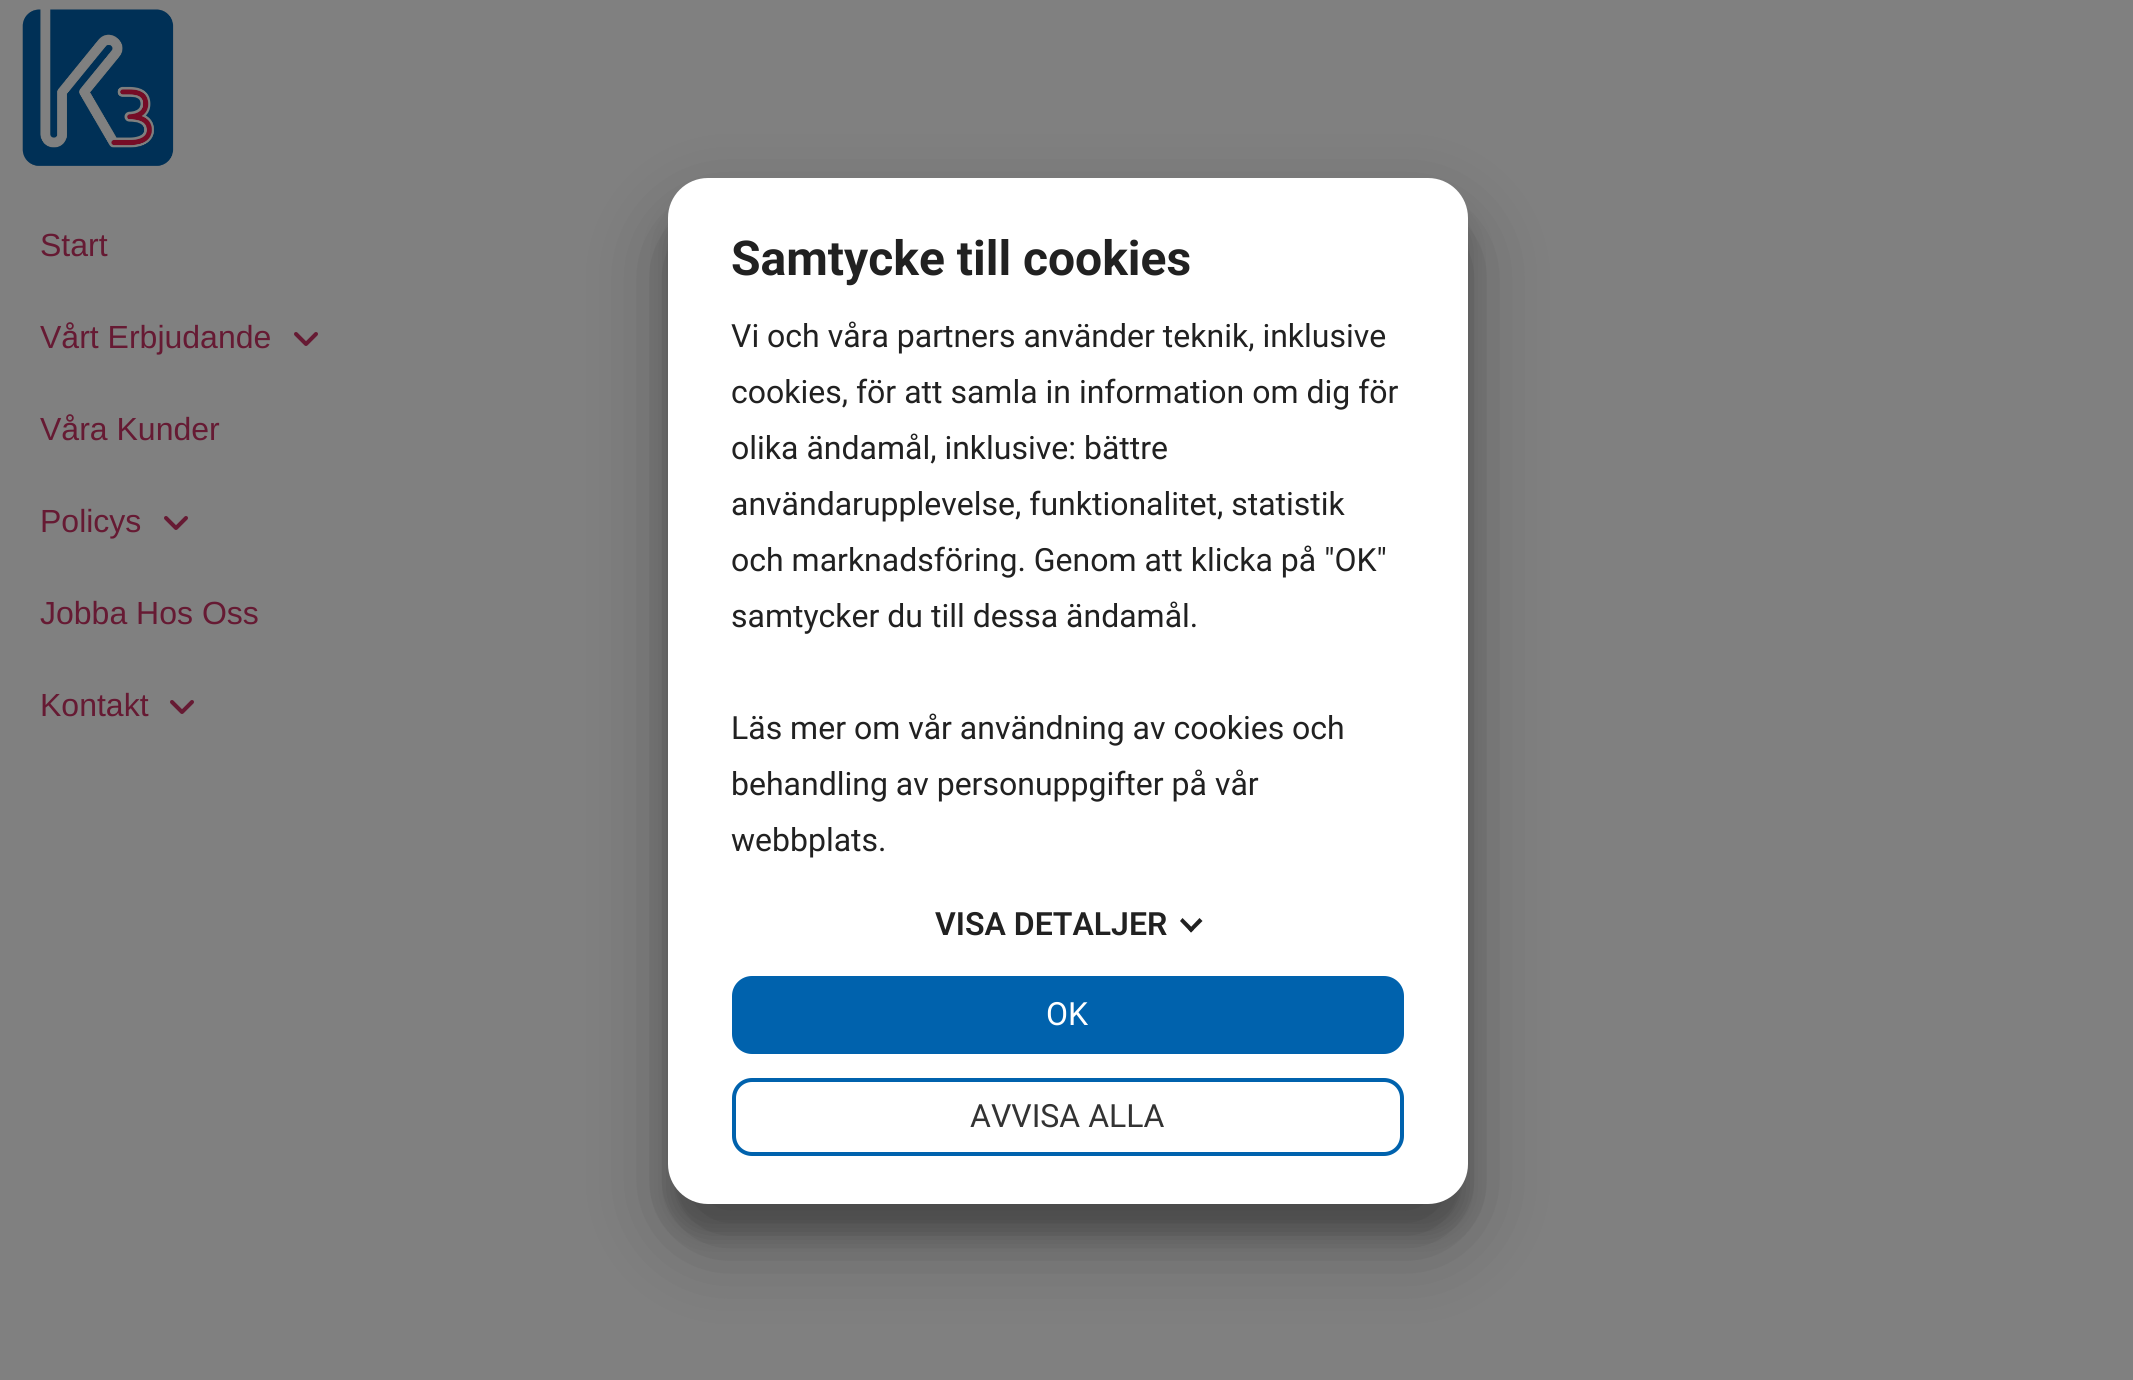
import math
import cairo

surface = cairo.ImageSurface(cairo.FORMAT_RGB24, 2133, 1380)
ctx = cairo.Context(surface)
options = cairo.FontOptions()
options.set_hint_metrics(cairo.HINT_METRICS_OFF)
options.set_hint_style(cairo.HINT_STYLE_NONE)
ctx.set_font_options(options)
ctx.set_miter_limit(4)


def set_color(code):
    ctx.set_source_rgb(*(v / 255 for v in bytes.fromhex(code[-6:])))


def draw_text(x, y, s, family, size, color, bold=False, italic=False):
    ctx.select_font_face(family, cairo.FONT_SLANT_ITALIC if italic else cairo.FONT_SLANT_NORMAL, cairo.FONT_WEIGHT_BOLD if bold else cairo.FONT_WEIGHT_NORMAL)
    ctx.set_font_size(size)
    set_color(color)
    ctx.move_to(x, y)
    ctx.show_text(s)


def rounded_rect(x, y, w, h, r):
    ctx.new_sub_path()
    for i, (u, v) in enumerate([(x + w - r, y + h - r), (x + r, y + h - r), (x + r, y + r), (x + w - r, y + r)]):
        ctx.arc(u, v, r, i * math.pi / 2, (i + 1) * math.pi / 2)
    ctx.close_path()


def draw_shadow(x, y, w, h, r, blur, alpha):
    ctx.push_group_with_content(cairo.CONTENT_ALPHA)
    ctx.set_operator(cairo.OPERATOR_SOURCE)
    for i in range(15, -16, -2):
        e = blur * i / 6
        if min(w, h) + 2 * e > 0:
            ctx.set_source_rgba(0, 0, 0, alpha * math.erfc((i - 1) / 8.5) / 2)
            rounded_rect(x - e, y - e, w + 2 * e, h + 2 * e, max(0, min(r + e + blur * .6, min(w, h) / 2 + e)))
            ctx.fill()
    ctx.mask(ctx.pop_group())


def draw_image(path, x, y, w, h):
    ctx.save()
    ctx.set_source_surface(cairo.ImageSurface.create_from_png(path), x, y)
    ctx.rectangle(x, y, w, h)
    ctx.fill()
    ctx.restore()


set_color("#808080")
ctx.paint()
draw_image("assets/img1.png", 22, 9, 152, 157)
draw_text(40, 256, "Start", "Liberation Sans", 32, "#661a33")
draw_text(40, 348, "Vårt Erbjudande", "Liberation Sans", 32, "#661a33")
draw_image("assets/img2.png", 294, 332, 24, 14)
draw_text(40, 440, "Våra Kunder", "Liberation Sans", 32, "#661a33")
draw_text(40, 532, "Policys", "Liberation Sans", 32, "#661a33")
draw_image("assets/img2.png", 164, 516, 24, 14)
draw_text(40, 624, "Jobba Hos Oss", "Liberation Sans", 32, "#661a33")
draw_text(40, 716, "Kontakt", "Liberation Sans", 32, "#661a33")
draw_image("assets/img2.png", 170, 700, 24, 14)
set_color("#000000")
draw_shadow(668, 208, 800, 1026, 40, 12, 0.22)
draw_shadow(668, 216, 800, 1026, 40, 38, 0.3)
set_color("#ffffff")
rounded_rect(668, 178, 800, 1026, 40)
ctx.fill()
draw_text(731, 275, "Samtycke till cookies", "Roboto", 48, "#212121", bold=True)
draw_text(731, 347, "Vi och våra partners använder teknik, inklusive", "Roboto", 32, "#212121")
draw_text(731, 403, "cookies, för att samla in information om dig för", "Roboto", 32, "#212121")
draw_text(731, 459, "olika ändamål, inklusive: bättre", "Roboto", 32, "#212121")
draw_text(731, 515, "användarupplevelse, funktionalitet, statistik", "Roboto", 32, "#212121")
draw_text(731, 571, "och marknadsföring. Genom att klicka på \"OK\"", "Roboto", 32, "#212121")
draw_text(731, 627, "samtycker du till dessa ändamål.", "Roboto", 32, "#212121")
draw_text(731, 739, "Läs mer om vår användning av cookies och", "Roboto", 32, "#212121")
draw_text(731, 795, "behandling av personuppgifter på vår", "Roboto", 32, "#212121")
draw_text(731, 851, "webbplats.", "Roboto", 32, "#212121")
draw_text(935, 935, "VISA DETALJER", "Roboto SemiBold", 32, "#212121")
ctx.new_path()
ctx.move_to(1199.5, 918)
ctx.line_to(1202.5, 921)
ctx.line_to(1191, 932.5)
ctx.line_to(1188.5, 929.5)
ctx.close_path()
ctx.fill()
ctx.new_path()
ctx.move_to(1182.5, 918)
ctx.line_to(1194, 929.5)
ctx.line_to(1191, 932.5)
ctx.line_to(1180, 921)
ctx.close_path()
ctx.fill()
set_color("#0062ad")
rounded_rect(734, 978, 668, 74, 18)
ctx.fill_preserve()
ctx.set_line_width(4)
ctx.stroke()
draw_text(1046, 1025, "OK", "Roboto", 32, "#ffffff")
rounded_rect(734, 1080, 668, 74, 18)
set_color("#0062ad")
ctx.stroke()
draw_text(970, 1127, "AVVISA ALLA", "Roboto", 32, "#333333")
surface.write_to_png("output.png")
